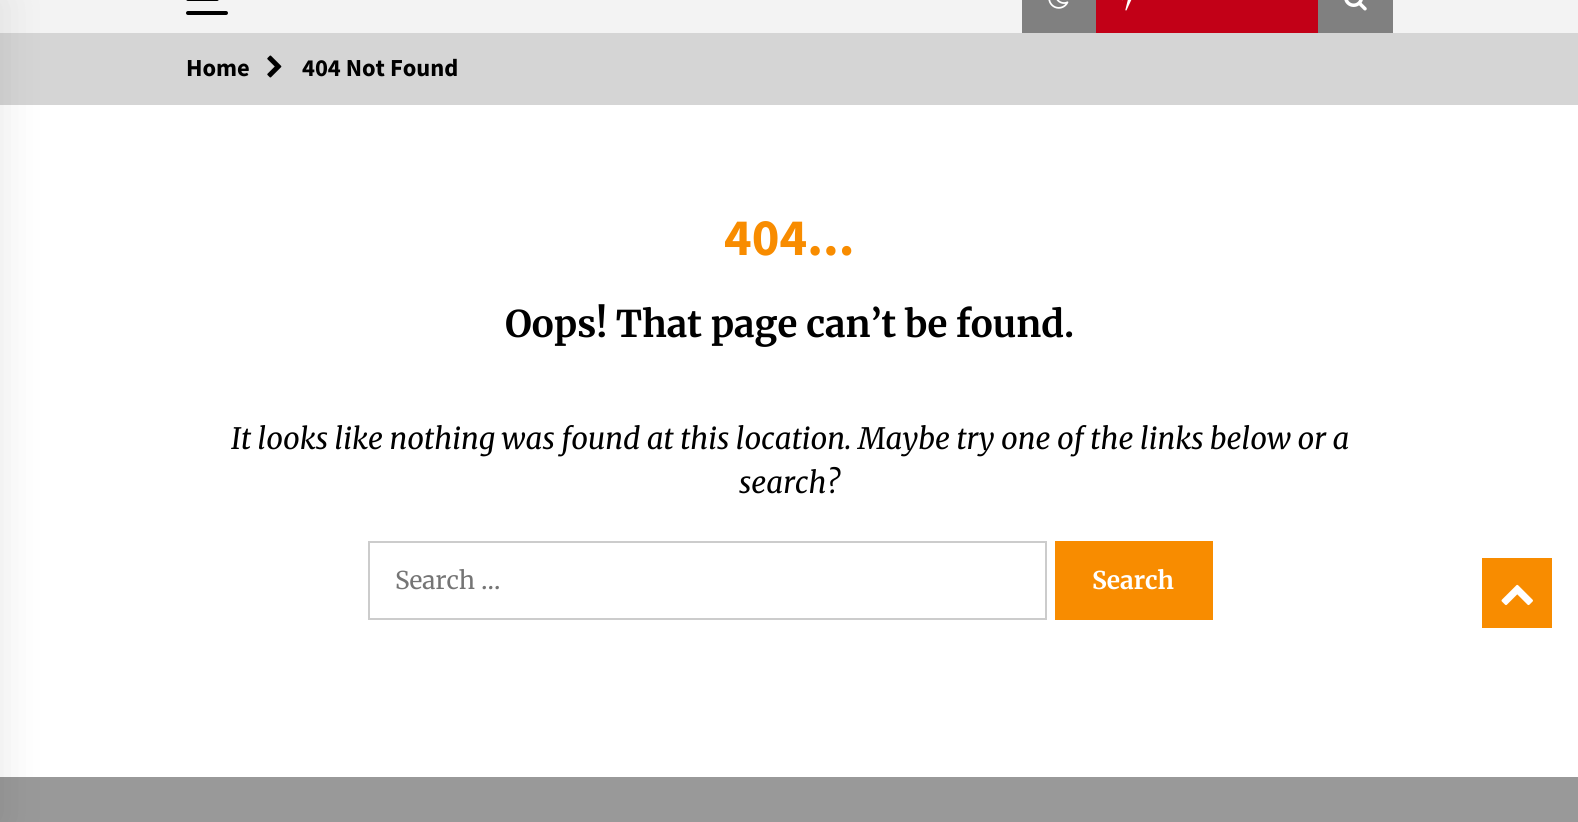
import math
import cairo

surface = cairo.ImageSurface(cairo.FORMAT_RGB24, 1578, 822)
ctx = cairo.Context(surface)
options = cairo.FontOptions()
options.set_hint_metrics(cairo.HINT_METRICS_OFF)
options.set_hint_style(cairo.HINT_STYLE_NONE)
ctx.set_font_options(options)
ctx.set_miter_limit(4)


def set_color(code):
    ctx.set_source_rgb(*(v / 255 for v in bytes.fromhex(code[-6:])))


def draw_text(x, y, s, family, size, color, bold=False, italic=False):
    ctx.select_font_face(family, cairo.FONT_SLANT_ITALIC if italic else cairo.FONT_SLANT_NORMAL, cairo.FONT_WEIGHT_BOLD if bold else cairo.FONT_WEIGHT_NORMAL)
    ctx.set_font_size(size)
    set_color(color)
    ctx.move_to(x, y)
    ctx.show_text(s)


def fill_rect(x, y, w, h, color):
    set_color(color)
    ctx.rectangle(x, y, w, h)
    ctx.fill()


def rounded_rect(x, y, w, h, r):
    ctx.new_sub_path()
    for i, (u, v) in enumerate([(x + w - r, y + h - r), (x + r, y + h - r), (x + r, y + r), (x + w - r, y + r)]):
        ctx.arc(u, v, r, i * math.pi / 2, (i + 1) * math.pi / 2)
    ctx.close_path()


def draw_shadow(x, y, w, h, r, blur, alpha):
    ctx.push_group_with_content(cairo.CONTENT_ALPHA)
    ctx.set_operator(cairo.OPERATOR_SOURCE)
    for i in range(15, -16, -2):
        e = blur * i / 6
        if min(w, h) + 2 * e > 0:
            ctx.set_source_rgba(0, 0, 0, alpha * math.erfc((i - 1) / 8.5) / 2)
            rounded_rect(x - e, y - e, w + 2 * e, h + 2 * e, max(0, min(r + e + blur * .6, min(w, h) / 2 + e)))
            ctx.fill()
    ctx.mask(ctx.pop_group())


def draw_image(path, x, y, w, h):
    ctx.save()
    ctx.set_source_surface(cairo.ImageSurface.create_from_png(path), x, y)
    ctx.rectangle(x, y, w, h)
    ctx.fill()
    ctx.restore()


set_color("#ffffff")
ctx.paint()
fill_rect(0, 0, 1578, 33, "#f3f3f3")
fill_rect(0, 33, 1578, 72, "#d5d5d5")
fill_rect(0, 777, 1578, 45, "#999999")
set_color("#000000")
draw_shadow(-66, 0, 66, 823, 0, 22, 0.1)
set_color("#000000")
rounded_rect(186, -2, 33, 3, 2)
ctx.fill()
rounded_rect(186, 11, 42, 4, 2)
ctx.fill()
fill_rect(1022, 0, 74, 33, "#808080")
draw_image("assets/img1.png", 1048, 0, 21, 9)
fill_rect(1096, 0, 222, 33, "#c20017")
draw_image("assets/img2.png", 1122, 0, 10, 11)
fill_rect(1318, 0, 75, 33, "#808080")
draw_image("assets/img3.png", 1344, 0, 23, 11)
draw_text(186, 76, "Home", "Source Sans Pro", 24.5, "#000000", bold=True)
draw_image("assets/img4.png", 267, 55, 15, 23)
draw_text(302, 76, "404 Not Found", "Source Sans Pro", 24.5, "#000000", bold=True)
draw_text(724, 255, "404...", "Source Sans Pro", 52.5, "#f88c00", bold=True)
draw_text(505, 337, "Oops! That page can’t be found.", "Merriweather", 36.75, "#000000", bold=True)
draw_text(231, 449, "It looks like nothing was found at this location. Maybe try one of the links below or a", "Merriweather Light", 29.4, "#000000", italic=True)
draw_text(739, 493, "search?", "Merriweather Light", 29.4, "#000000", italic=True)
ctx.rectangle(369, 542, 677, 77)
set_color("#cccccc")
ctx.stroke()
draw_text(395, 589, "Search …", "Merriweather", 24.5, "#757575")
fill_rect(1055, 541, 158, 79, "#f88c00")
draw_text(1092, 589, "Search", "Merriweather", 24.5, "#ffffff", bold=True)
fill_rect(1482, 558, 70, 70, "#f88c00")
draw_image("assets/img5.png", 1501, 584, 32, 22)
surface.write_to_png("output.png")
